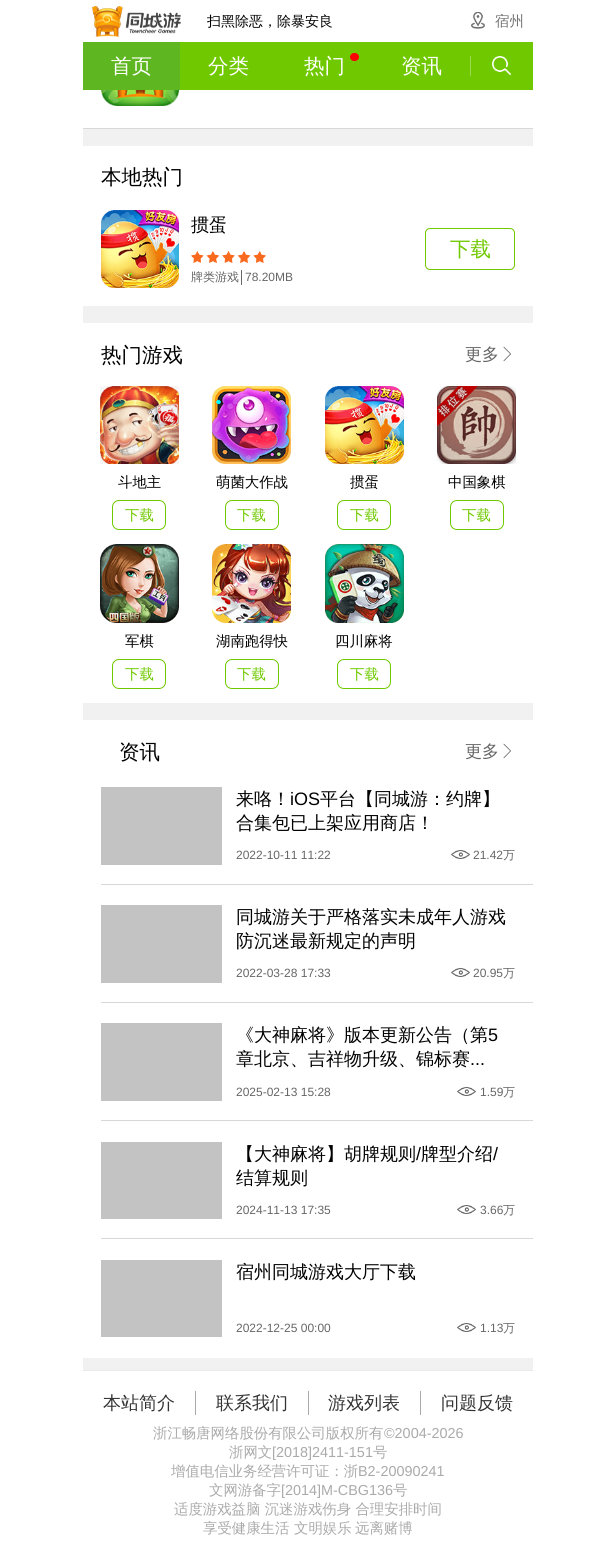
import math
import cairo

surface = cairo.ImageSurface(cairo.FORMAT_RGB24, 616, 1556)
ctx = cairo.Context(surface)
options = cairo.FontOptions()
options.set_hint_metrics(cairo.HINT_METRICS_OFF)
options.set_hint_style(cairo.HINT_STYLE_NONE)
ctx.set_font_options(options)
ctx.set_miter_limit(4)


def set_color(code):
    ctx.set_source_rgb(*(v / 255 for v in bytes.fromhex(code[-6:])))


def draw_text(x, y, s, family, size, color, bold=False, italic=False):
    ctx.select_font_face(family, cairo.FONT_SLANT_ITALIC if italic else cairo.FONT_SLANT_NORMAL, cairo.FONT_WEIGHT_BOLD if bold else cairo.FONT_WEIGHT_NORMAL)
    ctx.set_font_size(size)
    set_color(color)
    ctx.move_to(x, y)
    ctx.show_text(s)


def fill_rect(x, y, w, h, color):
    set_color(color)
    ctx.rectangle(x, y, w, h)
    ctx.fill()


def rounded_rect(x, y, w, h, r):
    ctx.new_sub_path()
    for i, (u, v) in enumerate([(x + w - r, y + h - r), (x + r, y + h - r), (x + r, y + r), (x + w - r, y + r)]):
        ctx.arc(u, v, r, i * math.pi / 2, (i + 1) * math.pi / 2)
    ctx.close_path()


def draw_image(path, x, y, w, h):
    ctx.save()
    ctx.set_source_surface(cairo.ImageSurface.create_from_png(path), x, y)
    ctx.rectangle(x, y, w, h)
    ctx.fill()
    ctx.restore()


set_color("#ffffff")
ctx.paint()
fill_rect(83, 129, 450, 1241, "#f1f1f1")
draw_image("assets/img1.png", 92, 6, 89, 31)
draw_text(207, 26, "扫黑除恶，除暴安良", "WenQuanYi Zen Hei Medium", 14, "#000000")
draw_image("assets/img2.png", 471, 12, 14, 17)
draw_text(495, 26, "宿州", "WenQuanYi Zen Hei Medium", 14.4, "#707070")
fill_rect(180, 42, 353, 48, "#70c900")
fill_rect(83, 42, 97, 48, "#5eb720")
draw_text(111, 73, "首页", "WenQuanYi Zen Hei Medium", 20.5, "#ffffff")
draw_text(208, 73, "分类", "WenQuanYi Zen Hei Medium", 20.5, "#ffffff")
draw_text(304, 73, "热门", "WenQuanYi Zen Hei Medium", 20.5, "#ffffff")
set_color("#ff0000")
rounded_rect(350, 53, 9, 8, 4)
ctx.fill()
draw_text(401, 73, "资讯", "WenQuanYi Zen Hei Medium", 20.5, "#ffffff")
fill_rect(470, 56, 1, 20, "#9bd94d")
draw_image("assets/img3.png", 492, 56, 19, 19)
draw_image("assets/img4.png", 101, 90, 78, 16)
fill_rect(83, 128, 450, 1, "#d8d8d8")
fill_rect(83, 146, 450, 160, "#ffffff")
draw_text(101, 184, "本地热门", "WenQuanYi Zen Hei Medium", 20.5, "#000000")
draw_image("assets/img5.png", 101, 210, 78, 78)
draw_text(191, 231, "掼蛋", "WenQuanYi Zen Hei Medium", 18, "#000000")
draw_image("assets/img6.png", 191, 251, 75, 12)
draw_text(191, 281, "牌类游戏", "WenQuanYi Zen Hei Medium", 12, "#666666")
fill_rect(241, 270, 1, 15, "#666666")
draw_text(245, 281, "78.20MB", "Liberation Sans", 12, "#666666")
rounded_rect(425.5, 228.5, 89, 41, 4.5)
set_color("#71c901")
ctx.set_line_width(1)
ctx.stroke()
draw_text(450, 256, "下载", "WenQuanYi Zen Hei Medium", 20.5, "#70c900")
fill_rect(83, 323, 450, 380, "#ffffff")
draw_text(101, 362, "热门游戏", "WenQuanYi Zen Hei Medium", 20.5, "#000000")
draw_text(465, 360, "更多", "WenQuanYi Zen Hei Medium", 17, "#666666")
draw_image("assets/img7.png", 503, 346, 8, 16)
draw_image("assets/img8.png", 100, 386, 79, 78)
draw_text(118, 487, "斗地主", "WenQuanYi Zen Hei Medium", 14.4, "#000000")
rounded_rect(112.5, 500.5, 53, 29, 6.5)
set_color("#70c900")
ctx.stroke()
draw_text(125, 520, "下载", "WenQuanYi Zen Hei Medium", 14.4, "#70c900")
draw_image("assets/img9.png", 212, 386, 79, 78)
draw_text(216, 487, "萌菌大作战", "WenQuanYi Zen Hei Medium", 14.4, "#000000")
rounded_rect(225.5, 500.5, 53, 29, 6.5)
set_color("#70c900")
ctx.stroke()
draw_text(237, 520, "下载", "WenQuanYi Zen Hei Medium", 14.4, "#70c900")
draw_image("assets/img10.png", 325, 386, 79, 78)
draw_text(350, 487, "掼蛋", "WenQuanYi Zen Hei Medium", 14.4, "#000000")
rounded_rect(337.5, 500.5, 53, 29, 6.5)
set_color("#70c900")
ctx.stroke()
draw_text(350, 520, "下载", "WenQuanYi Zen Hei Medium", 14.4, "#70c900")
draw_image("assets/img11.png", 437, 386, 79, 78)
draw_text(448, 487, "中国象棋", "WenQuanYi Zen Hei Medium", 14.4, "#000000")
rounded_rect(450.5, 500.5, 53, 29, 6.5)
set_color("#70c900")
ctx.stroke()
draw_text(462, 520, "下载", "WenQuanYi Zen Hei Medium", 14.4, "#70c900")
draw_image("assets/img12.png", 100, 544, 79, 79)
draw_text(125, 646, "军棋", "WenQuanYi Zen Hei Medium", 14.4, "#000000")
rounded_rect(112.5, 659.5, 53, 29, 6.5)
set_color("#70c900")
ctx.stroke()
draw_text(125, 679, "下载", "WenQuanYi Zen Hei Medium", 14.4, "#70c900")
draw_image("assets/img13.png", 212, 544, 79, 79)
draw_text(216, 646, "湖南跑得快", "WenQuanYi Zen Hei Medium", 14.4, "#000000")
rounded_rect(225.5, 659.5, 53, 29, 6.5)
set_color("#70c900")
ctx.stroke()
draw_text(237, 679, "下载", "WenQuanYi Zen Hei Medium", 14.4, "#70c900")
draw_image("assets/img14.png", 325, 544, 79, 79)
draw_text(335, 646, "四川麻将", "WenQuanYi Zen Hei Medium", 14.4, "#000000")
rounded_rect(337.5, 659.5, 53, 29, 6.5)
set_color("#70c900")
ctx.stroke()
draw_text(350, 679, "下载", "WenQuanYi Zen Hei Medium", 14.4, "#70c900")
fill_rect(83, 720, 450, 638, "#ffffff")
draw_text(119, 759, "资讯", "WenQuanYi Zen Hei Medium", 20.5, "#000000")
draw_text(465, 757, "更多", "WenQuanYi Zen Hei Medium", 17, "#666666")
draw_image("assets/img7.png", 503, 743, 8, 16)
fill_rect(101, 787, 121, 78, "#c3c3c3")
draw_text(236, 805, "来咯！", "WenQuanYi Zen Hei Medium", 18, "#000000")
draw_text(290, 805, "iOS", "Liberation Sans", 18, "#000000")
draw_text(320, 805, "平台【同城游：约牌】", "WenQuanYi Zen Hei Medium", 18, "#000000")
draw_text(236, 829, "合集包已上架应用商店！", "WenQuanYi Zen Hei Medium", 18, "#000000")
draw_text(236, 859, "2022-10-11 11:22", "Liberation Sans", 12, "#666666")
draw_image("assets/img15.png", 451, 850, 19, 9)
draw_text(473, 859, "21.42", "Liberation Sans", 12, "#666666")
draw_text(503, 859, "万", "WenQuanYi Zen Hei Medium", 12, "#666666")
fill_rect(101, 884, 432, 1, "#d8d8d8")
fill_rect(101, 905, 121, 78, "#c3c3c3")
draw_text(236, 923, "同城游关于严格落实未成年人游戏", "WenQuanYi Zen Hei Medium", 18, "#000000")
draw_text(236, 947, "防沉迷最新规定的声明", "WenQuanYi Zen Hei Medium", 18, "#000000")
draw_text(236, 977, "2022-03-28 17:33", "Liberation Sans", 12, "#666666")
draw_image("assets/img16.png", 451, 968, 19, 9)
draw_text(473, 977, "20.95", "Liberation Sans", 12, "#666666")
draw_text(503, 977, "万", "WenQuanYi Zen Hei Medium", 12, "#666666")
fill_rect(101, 1002, 432, 1, "#d8d8d8")
fill_rect(101, 1023, 121, 78, "#c3c3c3")
draw_text(236, 1041, "《大神麻将》版本更新公告（第", "WenQuanYi Zen Hei Medium", 18, "#000000")
draw_text(488, 1041, "5", "Liberation Sans", 18, "#000000")
draw_text(236, 1065, "章北京、吉祥物升级、锦标赛", "WenQuanYi Zen Hei Medium", 18, "#000000")
draw_text(470, 1065, "...", "Liberation Sans", 18, "#000000")
draw_text(236, 1096, "2025-02-13 15:28", "Liberation Sans", 12, "#666666")
draw_image("assets/img15.png", 457, 1087, 19, 9)
draw_text(480, 1096, "1.59", "Liberation Sans", 12, "#666666")
draw_text(503, 1096, "万", "WenQuanYi Zen Hei Medium", 12, "#666666")
fill_rect(101, 1120, 432, 1, "#d8d8d8")
fill_rect(101, 1142, 121, 77, "#c3c3c3")
draw_text(236, 1160, "【大神麻将】胡牌规则", "WenQuanYi Zen Hei Medium", 18, "#000000")
draw_text(416, 1160, "/", "Liberation Sans", 18, "#000000")
draw_text(421, 1160, "牌型介绍", "WenQuanYi Zen Hei Medium", 18, "#000000")
draw_text(493, 1160, "/", "Liberation Sans", 18, "#000000")
draw_text(236, 1184, "结算规则", "WenQuanYi Zen Hei Medium", 18, "#000000")
draw_text(236, 1214, "2024-11-13 17:35", "Liberation Sans", 12, "#666666")
draw_image("assets/img15.png", 457, 1205, 19, 9)
draw_text(480, 1214, "3.66", "Liberation Sans", 12, "#666666")
draw_text(503, 1214, "万", "WenQuanYi Zen Hei Medium", 12, "#666666")
fill_rect(101, 1238, 432, 1, "#d8d8d8")
fill_rect(101, 1260, 121, 77, "#c3c3c3")
draw_text(236, 1278, "宿州同城游戏大厅下载", "WenQuanYi Zen Hei Medium", 18, "#000000")
draw_text(236, 1332, "2022-12-25 00:00", "Liberation Sans", 12, "#666666")
draw_image("assets/img15.png", 457, 1323, 19, 9)
draw_text(480, 1332, "1.13", "Liberation Sans", 12, "#666666")
draw_text(503, 1332, "万", "WenQuanYi Zen Hei Medium", 12, "#666666")
fill_rect(83, 1370, 450, 1, "#eaeaea")
fill_rect(195, 1391, 1, 24, "#aaaaaa")
draw_text(103, 1409, "本站简介", "WenQuanYi Zen Hei Medium", 18, "#333333")
fill_rect(308, 1391, 1, 24, "#aaaaaa")
draw_text(216, 1409, "联系我们", "WenQuanYi Zen Hei Medium", 18, "#333333")
fill_rect(420, 1391, 1, 24, "#aaaaaa")
draw_text(328, 1409, "游戏列表", "WenQuanYi Zen Hei Medium", 18, "#333333")
draw_text(441, 1409, "问题反馈", "WenQuanYi Zen Hei Medium", 18, "#333333")
draw_text(153, 1438, "浙江畅唐网络股份有限公司版权所有", "WenQuanYi Zen Hei Medium", 14.4, "#aaaaaa")
draw_text(384, 1438, "©2004-2026", "Liberation Sans", 14.4, "#aaaaaa")
draw_text(229, 1457, "浙网文", "WenQuanYi Zen Hei Medium", 14.4, "#aaaaaa")
draw_text(272, 1457, "[2018]2411-151", "Liberation Sans", 14.4, "#aaaaaa")
draw_text(373, 1457, "号", "WenQuanYi Zen Hei Medium", 14.4, "#aaaaaa")
draw_text(171, 1476, "增值电信业务经营许可证：浙", "WenQuanYi Zen Hei Medium", 14.4, "#aaaaaa")
draw_text(358, 1476, "B2-20090241", "Liberation Sans", 14.4, "#aaaaaa")
draw_text(209, 1495, "文网游备字", "WenQuanYi Zen Hei Medium", 14.4, "#aaaaaa")
draw_text(281, 1495, "[2014]M-CBG136", "Liberation Sans", 14.4, "#aaaaaa")
draw_text(393, 1495, "号", "WenQuanYi Zen Hei Medium", 14.4, "#aaaaaa")
draw_text(174, 1514, "适度游戏益脑 沉迷游戏伤身 合理安排时间", "WenQuanYi Zen Hei Medium", 14.4, "#aaaaaa")
draw_text(203, 1533, "享受健康生活", "WenQuanYi Zen Hei Medium", 14.4, "#aaaaaa")
draw_text(294, 1533, "文明娱乐", "WenQuanYi Zen Hei Medium", 14.4, "#aaaaaa")
draw_text(355, 1533, "远离赌博", "WenQuanYi Zen Hei Medium", 14.4, "#aaaaaa")
surface.write_to_png("output.png")
